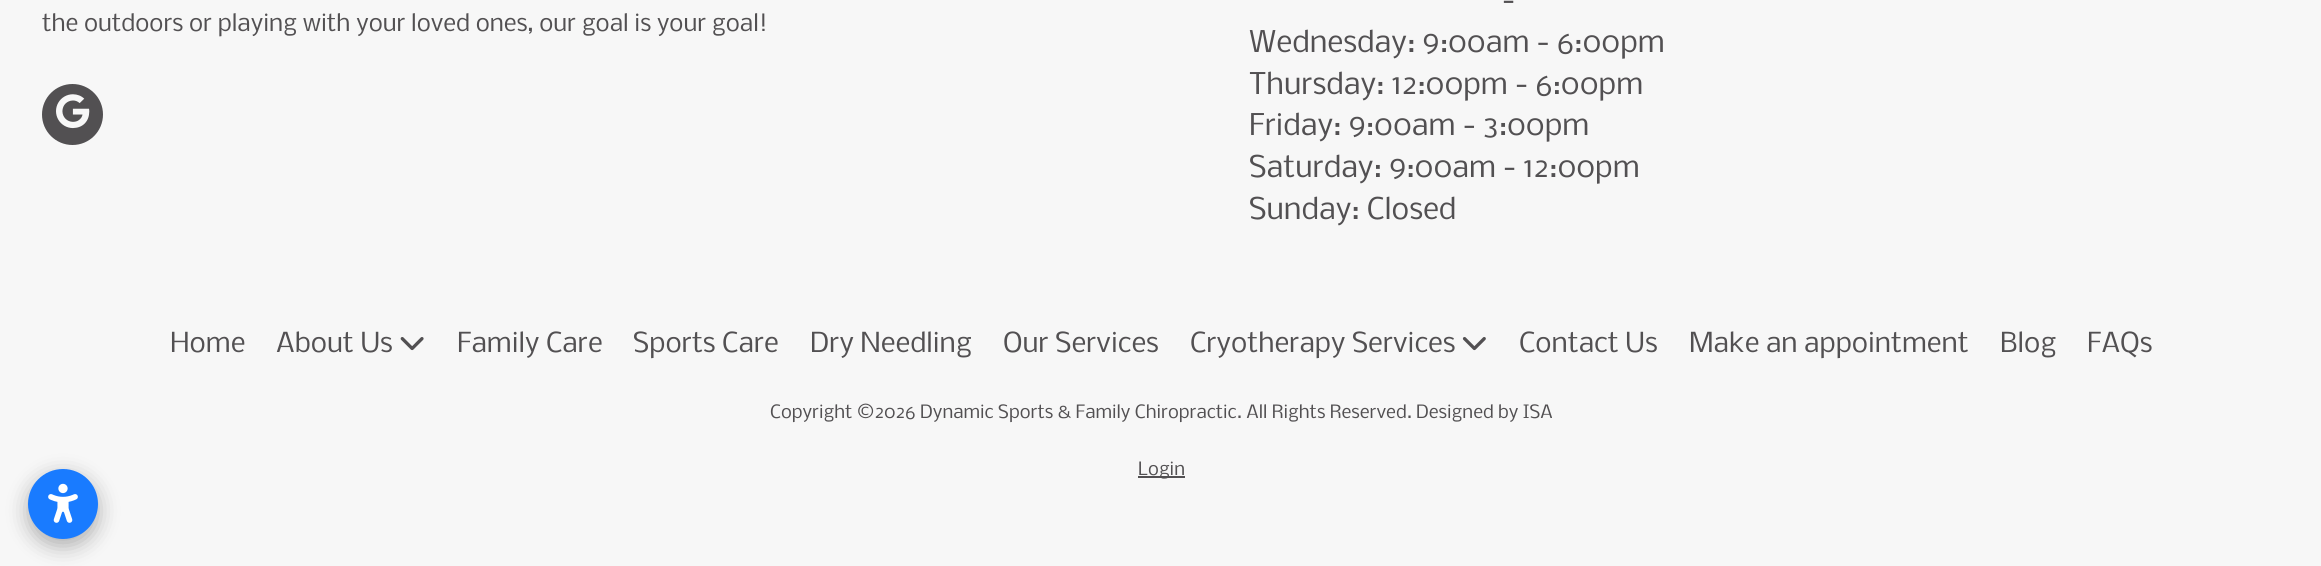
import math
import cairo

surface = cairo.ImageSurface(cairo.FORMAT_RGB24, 2321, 566)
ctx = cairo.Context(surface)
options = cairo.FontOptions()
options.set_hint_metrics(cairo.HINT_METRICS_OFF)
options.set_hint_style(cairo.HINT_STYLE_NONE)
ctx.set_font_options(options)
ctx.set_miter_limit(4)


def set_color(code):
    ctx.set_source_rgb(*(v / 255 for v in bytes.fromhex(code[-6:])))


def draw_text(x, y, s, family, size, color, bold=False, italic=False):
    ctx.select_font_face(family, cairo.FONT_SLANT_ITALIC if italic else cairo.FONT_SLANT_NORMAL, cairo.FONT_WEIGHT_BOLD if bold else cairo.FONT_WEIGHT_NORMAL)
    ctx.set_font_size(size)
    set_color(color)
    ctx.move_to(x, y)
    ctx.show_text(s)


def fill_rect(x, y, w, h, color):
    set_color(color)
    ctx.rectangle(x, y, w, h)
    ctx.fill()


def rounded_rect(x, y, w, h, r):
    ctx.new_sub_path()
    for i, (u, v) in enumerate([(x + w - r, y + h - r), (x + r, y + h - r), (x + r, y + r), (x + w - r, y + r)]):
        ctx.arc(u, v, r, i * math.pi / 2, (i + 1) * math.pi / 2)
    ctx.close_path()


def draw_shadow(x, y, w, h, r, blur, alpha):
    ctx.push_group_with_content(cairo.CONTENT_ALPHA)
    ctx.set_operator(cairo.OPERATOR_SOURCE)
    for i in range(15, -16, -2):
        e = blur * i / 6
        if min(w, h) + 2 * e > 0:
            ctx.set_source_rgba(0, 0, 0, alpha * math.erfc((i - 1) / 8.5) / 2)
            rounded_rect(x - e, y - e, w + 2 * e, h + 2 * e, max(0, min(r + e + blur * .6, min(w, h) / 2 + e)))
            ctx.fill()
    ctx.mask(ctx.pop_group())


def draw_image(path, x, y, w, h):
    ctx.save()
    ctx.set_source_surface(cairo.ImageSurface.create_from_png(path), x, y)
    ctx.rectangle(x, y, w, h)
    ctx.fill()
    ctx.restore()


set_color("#f7f7f7")
ctx.paint()
draw_text(42, 31, "the outdoors or playing with your loved ones, our goal is your goal!", "Nobile", 22.75, "#525052")
ctx.new_path()
ctx.arc(72.5, 114.5, 30.5, 0, 2 * math.pi)
ctx.fill()
draw_image("assets/img1.png", 56, 94, 34, 35)
draw_text(1502, 10, "-", "Nobile", 28.5, "#525052")
draw_text(1249, 52, "Wednesday: 9:00am - 6:00pm", "Nobile", 28.5, "#525052")
draw_text(1249, 94, "Thursday: 12:00pm - 6:00pm", "Nobile", 28.5, "#525052")
draw_text(1249, 135, "Friday: 9:00am - 3:00pm", "Nobile", 28.5, "#525052")
draw_text(1249, 177, "Saturday: 9:00am - 12:00pm", "Nobile", 28.5, "#525052")
draw_text(1249, 219, "Sunday: Closed", "Nobile", 28.5, "#525052")
draw_text(170, 352, "Home", "Nobile", 26.25, "#525052")
draw_text(276, 352, "About Us", "Nobile", 26.25, "#525052")
draw_image("assets/img2.png", 400, 337, 24, 14)
draw_text(457, 352, "Family Care", "Nobile", 26.25, "#525052")
draw_text(633, 352, "Sports Care", "Nobile", 26.25, "#525052")
draw_text(810, 352, "Dry Needling", "Nobile", 26.25, "#525052")
draw_text(1003, 352, "Our Services", "Nobile", 26.25, "#525052")
draw_text(1190, 352, "Cryotherapy Services", "Nobile", 26.25, "#525052")
draw_image("assets/img3.png", 1462, 337, 24, 14)
draw_text(1519, 352, "Contact Us", "Nobile", 26.25, "#525052")
draw_text(1689, 352, "Make an appointment", "Nobile", 26.25, "#525052")
draw_text(2000, 352, "Blog", "Nobile", 26.25, "#525052")
draw_text(2087, 352, "FAQs", "Nobile", 26.25, "#525052")
draw_text(770, 418, "Copyright ©2026 Dynamic Sports & Family Chiropractic. All Rights Reserved. Designed by ISA", "Nobile", 17.5, "#525052")
fill_rect(1138, 476, 47, 2, "#525052")
draw_text(1138, 475, "Login", "Nobile", 17.5, "#525052")
set_color("#000000")
draw_shadow(28, 476, 70, 70, 35, 10.5, 0.3)
set_color("#197bff")
ctx.arc(63, 504, 35, 0, 2 * math.pi)
ctx.fill()
draw_image("assets/img4.png", 48, 483, 30, 40)
surface.write_to_png("output.png")
